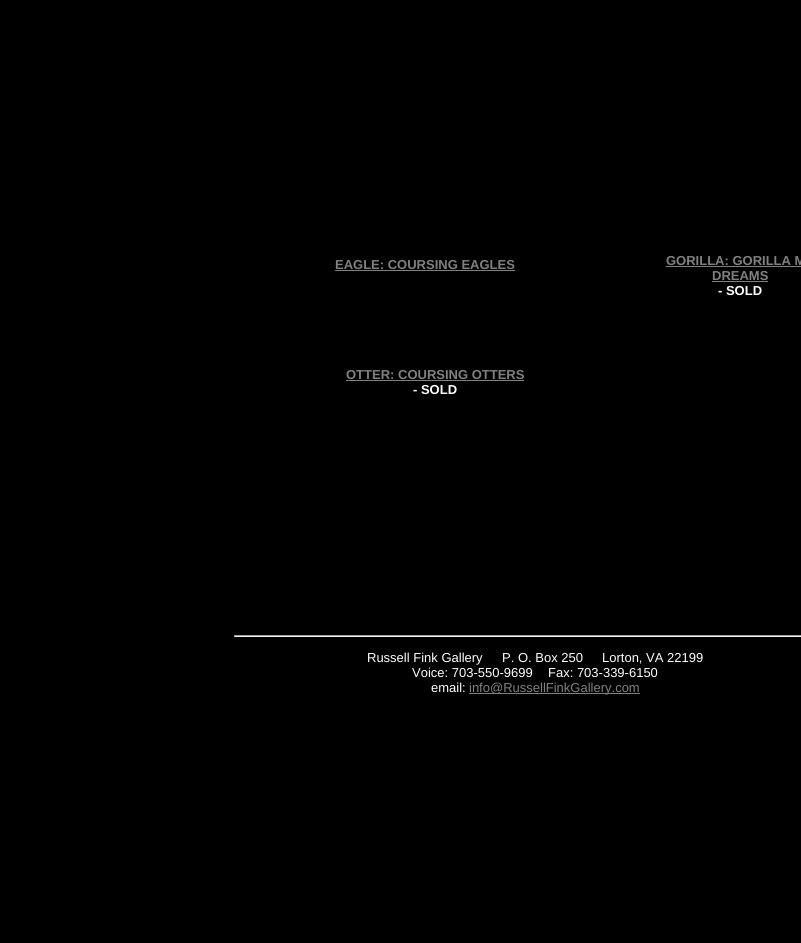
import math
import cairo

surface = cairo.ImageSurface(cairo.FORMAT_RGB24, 801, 943)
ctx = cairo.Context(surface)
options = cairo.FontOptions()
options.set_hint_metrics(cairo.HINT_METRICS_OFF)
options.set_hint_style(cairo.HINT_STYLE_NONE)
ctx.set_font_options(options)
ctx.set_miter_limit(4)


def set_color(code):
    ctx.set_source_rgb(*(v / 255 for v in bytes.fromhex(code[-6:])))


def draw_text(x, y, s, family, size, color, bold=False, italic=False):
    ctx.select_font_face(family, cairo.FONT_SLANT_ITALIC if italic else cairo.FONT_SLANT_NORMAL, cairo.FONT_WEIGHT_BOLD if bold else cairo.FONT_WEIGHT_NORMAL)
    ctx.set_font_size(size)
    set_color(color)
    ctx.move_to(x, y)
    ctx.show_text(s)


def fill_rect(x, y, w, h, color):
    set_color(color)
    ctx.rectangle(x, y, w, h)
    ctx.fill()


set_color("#000000")
ctx.paint()
draw_text(335, 269, "EAGLE: COURSING EAGLES", "Liberation Sans", 13, "#808080", bold=True)
fill_rect(335, 270, 180, 1, "#808080")
draw_text(666, 265, "GORILLA: GORILLA M", "Liberation Sans", 13, "#808080", bold=True)
fill_rect(666, 266, 135, 1, "#808080")
draw_text(712, 280, "DREAMS", "Liberation Sans", 13, "#808080", bold=True)
fill_rect(712, 281, 56, 1, "#808080")
draw_text(718, 295, "- SOLD", "Liberation Sans", 13, "#ffffff", bold=True)
draw_text(346, 379, "OTTER: COURSING OTTERS", "Liberation Sans", 13, "#808080", bold=True)
fill_rect(346, 380, 178, 1, "#808080")
draw_text(413, 394, "- SOLD", "Liberation Sans", 13, "#ffffff", bold=True)
fill_rect(234, 635, 567, 1, "#9f9f9f")
fill_rect(234, 636, 567, 1, "#eeeeee")
fill_rect(234, 635, 1, 2, "#9f9f9f")
draw_text(367, 662, "Russell Fink Gallery", "Liberation Sans", 13, "#ffffff")
draw_text(502, 662, "P. O. Box 250", "Liberation Sans", 13, "#ffffff")
draw_text(602, 662, "Lorton, VA 22199", "Liberation Sans", 13, "#ffffff")
draw_text(412, 677, "Voice: 703-550-9699", "Liberation Sans", 13, "#ffffff")
draw_text(548, 677, "Fax: 703-339-6150", "Liberation Sans", 13, "#ffffff")
draw_text(431, 692, "email:", "Liberation Sans", 13, "#ffffff")
fill_rect(469, 693, 171, 1, "#808080")
draw_text(469, 692, "info@RussellFinkGallery.com", "Liberation Sans", 13, "#808080")
surface.write_to_png("output.png")
